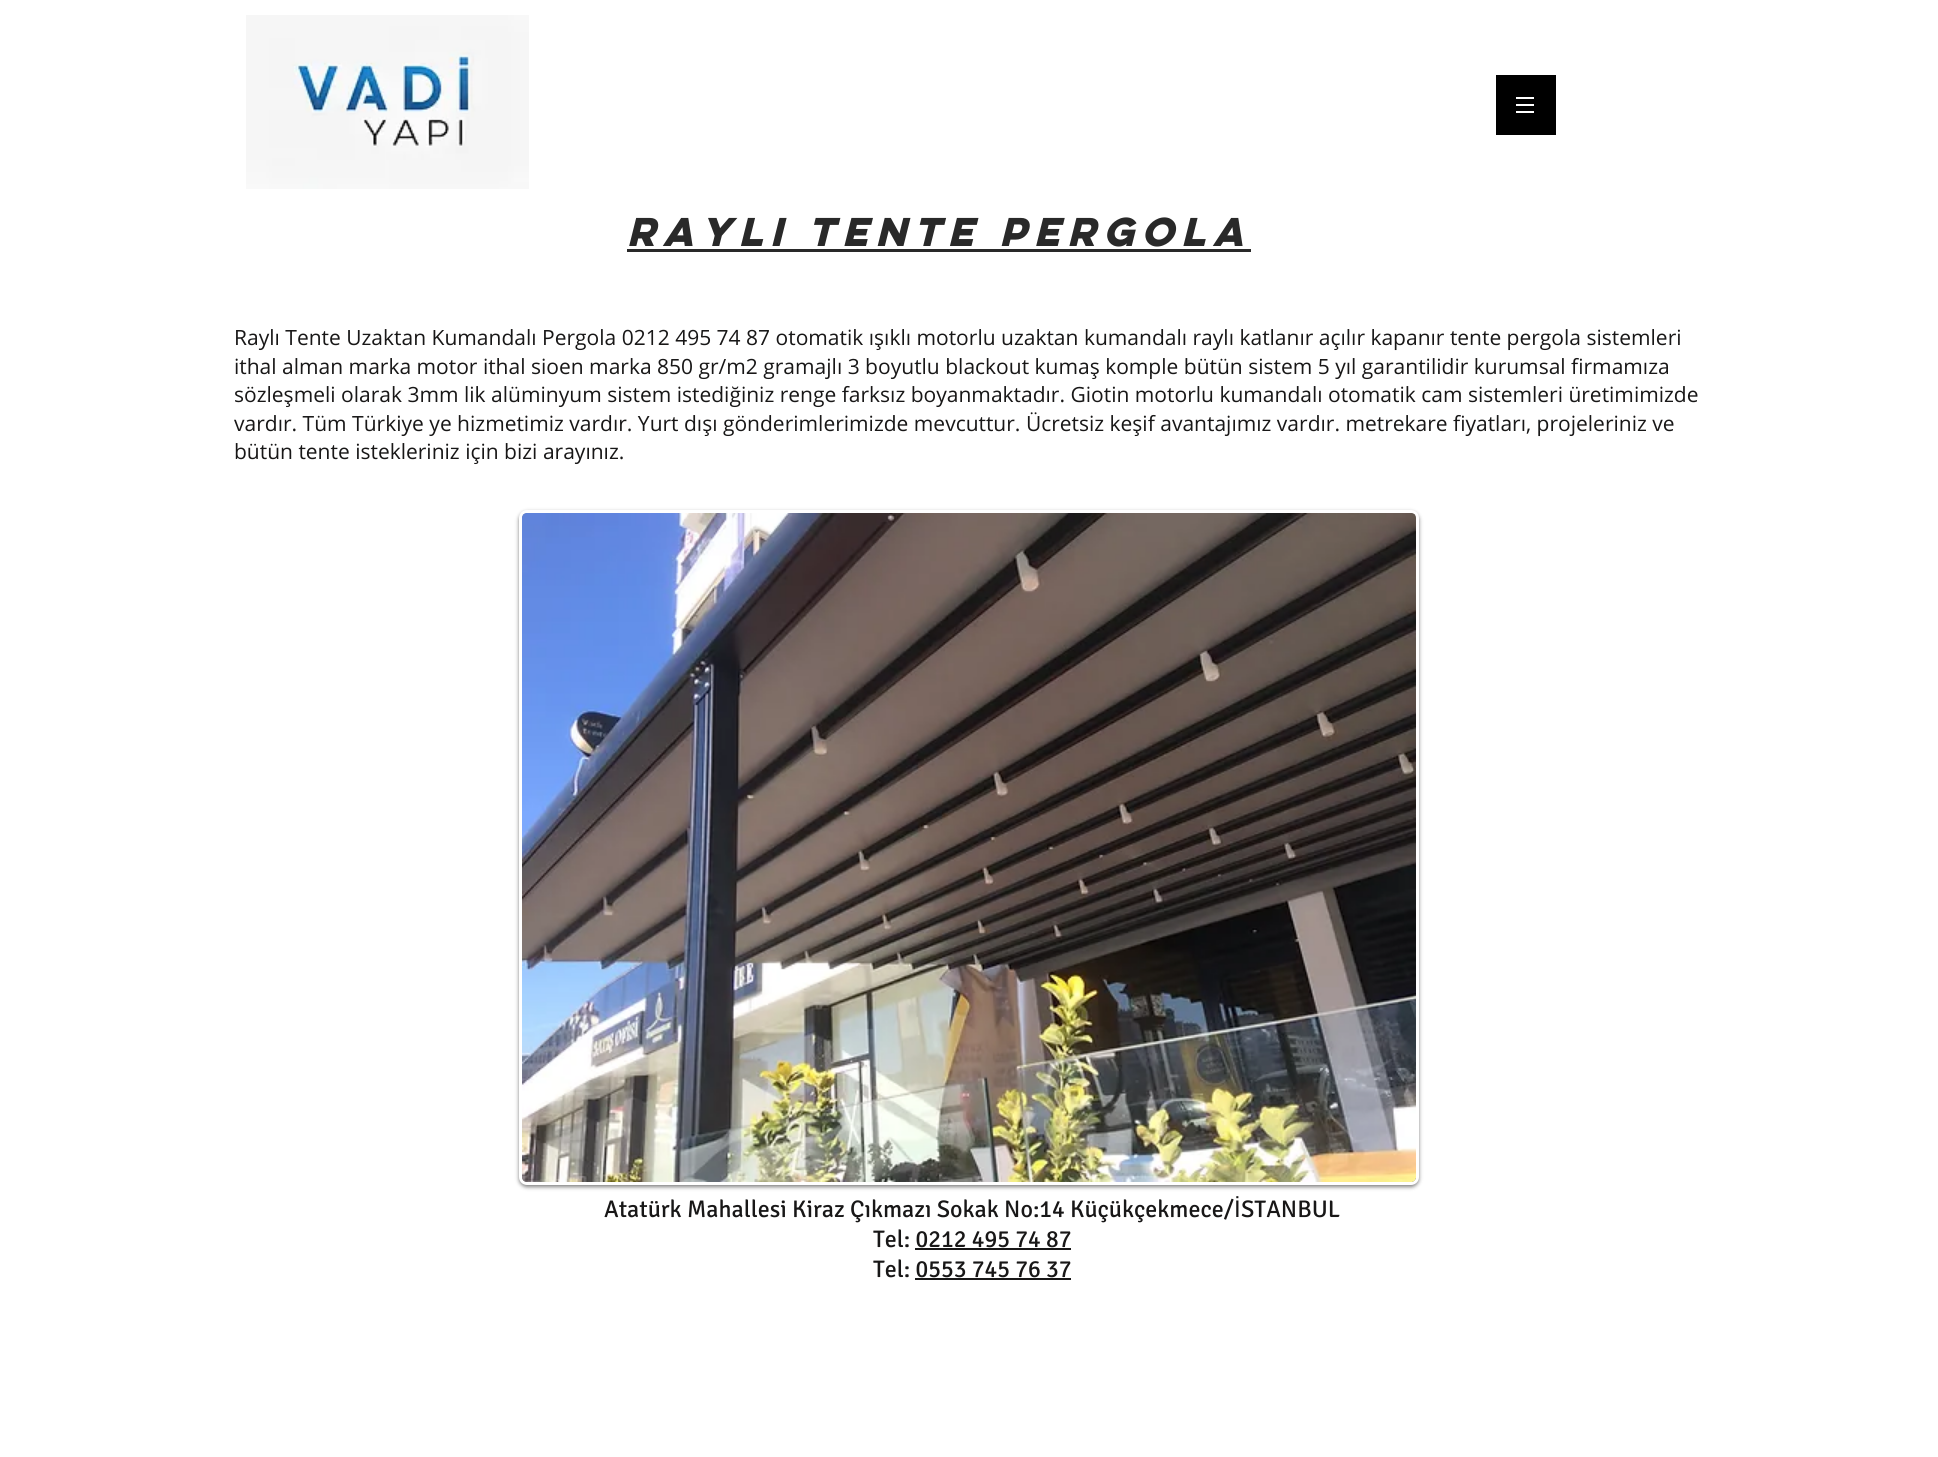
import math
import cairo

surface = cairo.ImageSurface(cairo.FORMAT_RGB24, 1938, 1457)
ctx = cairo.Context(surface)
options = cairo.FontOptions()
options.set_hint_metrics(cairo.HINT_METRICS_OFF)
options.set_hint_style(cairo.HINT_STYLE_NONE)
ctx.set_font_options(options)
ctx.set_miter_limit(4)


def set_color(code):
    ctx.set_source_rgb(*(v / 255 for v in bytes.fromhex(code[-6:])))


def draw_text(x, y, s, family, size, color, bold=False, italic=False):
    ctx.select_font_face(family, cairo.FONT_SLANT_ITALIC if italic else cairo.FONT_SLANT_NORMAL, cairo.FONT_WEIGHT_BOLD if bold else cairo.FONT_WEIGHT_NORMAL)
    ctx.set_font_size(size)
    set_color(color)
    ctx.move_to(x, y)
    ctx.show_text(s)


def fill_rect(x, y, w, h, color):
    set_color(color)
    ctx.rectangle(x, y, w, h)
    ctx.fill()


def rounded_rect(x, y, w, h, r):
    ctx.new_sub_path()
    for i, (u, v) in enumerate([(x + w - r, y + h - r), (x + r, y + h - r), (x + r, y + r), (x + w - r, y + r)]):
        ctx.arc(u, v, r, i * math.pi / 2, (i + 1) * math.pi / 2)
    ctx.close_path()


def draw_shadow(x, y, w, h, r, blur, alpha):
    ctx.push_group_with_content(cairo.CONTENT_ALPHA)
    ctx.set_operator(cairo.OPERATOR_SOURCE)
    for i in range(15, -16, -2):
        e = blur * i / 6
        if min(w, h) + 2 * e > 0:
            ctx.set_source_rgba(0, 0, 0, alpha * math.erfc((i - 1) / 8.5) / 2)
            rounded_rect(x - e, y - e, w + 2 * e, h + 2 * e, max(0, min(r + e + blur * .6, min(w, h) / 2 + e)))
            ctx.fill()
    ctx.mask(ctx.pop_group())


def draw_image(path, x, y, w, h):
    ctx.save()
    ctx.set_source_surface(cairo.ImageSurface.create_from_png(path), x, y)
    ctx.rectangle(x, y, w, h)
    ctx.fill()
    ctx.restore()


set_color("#ffffff")
ctx.paint()
draw_image("assets/img1.png", 246, 15, 283, 174)
set_color("#000000")
ctx.new_path()
ctx.move_to(1496, 75)
ctx.line_to(1496, 135)
ctx.line_to(1556, 135)
ctx.line_to(1556, 75)
ctx.close_path()
ctx.move_to(1534, 113)
ctx.line_to(1516, 113)
ctx.line_to(1516, 111)
ctx.line_to(1534, 111)
ctx.close_path()
ctx.move_to(1534, 106)
ctx.line_to(1516, 106)
ctx.line_to(1516, 104)
ctx.line_to(1534, 104)
ctx.close_path()
ctx.move_to(1534, 99)
ctx.line_to(1516, 99)
ctx.line_to(1516, 97)
ctx.line_to(1534, 97)
ctx.close_path()
ctx.fill()
draw_text(627, 246, "RAYLI TENTE PERGOLA", "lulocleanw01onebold", 36, "#292929", bold=True, italic=True)
fill_rect(627, 249, 624, 3, "#292929")
draw_text(234, 345, "Raylı Tente Uzaktan Kumandalı Pergola 0212 495 74 87 otomatik ışıklı motorlu uzaktan kumandalı raylı katlanır açılır kapanır tente pergola sistemleri", "Open Sans", 21, "#181717")
draw_text(234, 374, "ithal alman marka motor ithal sioen marka 850 gr/m2 gramajlı 3 boyutlu blackout kumaş komple bütün sistem 5 yıl garantilidir kurumsal firmamıza", "Open Sans", 21, "#181717")
draw_text(234, 402, "sözleşmeli olarak 3mm lik alüminyum sistem istediğiniz renge farksız boyanmaktadır. Giotin motorlu kumandalı otomatik cam sistemleri üretimimizde", "Open Sans", 21, "#181717")
draw_text(234, 431, "vardır. Tüm Türkiye ye hizmetimiz vardır. Yurt dışı gönderimlerimizde mevcuttur. Ücretsiz keşif avantajımız vardır. metrekare fiyatları, projeleriniz ve", "Open Sans", 21, "#181717")
draw_text(234, 459, "bütün tente istekleriniz için bizi arayınız.", "Open Sans", 21, "#181717")
set_color("#000000")
draw_shadow(519, 512, 900, 675, 8, 2, 0.5)
rounded_rect(520.5, 511.5, 897, 672, 6.5)
set_color("#ffffff")
ctx.set_line_width(3)
ctx.stroke()
draw_image("assets/img2.png", 522, 513, 894, 669)
draw_text(604, 1217, "Atatürk Mahallesi Kiraz Çıkmazı Sokak No:14 Küçükçekmece/", "Signika", 24, "#181717")
draw_text(1234, 1217, "İ", "Liberation Sans", 24, "#181717")
draw_text(1241, 1217, "STANBUL", "Signika", 24, "#181717")
draw_text(873, 1247, "Tel: 0212 495 74 87", "Signika", 24, "#181717")
fill_rect(915, 1248, 156, 2, "#181717")
draw_text(873, 1277, "Tel: 0553 745 76 37", "Signika", 24, "#181717")
fill_rect(915, 1278, 156, 2, "#181717")
surface.write_to_png("output.png")
